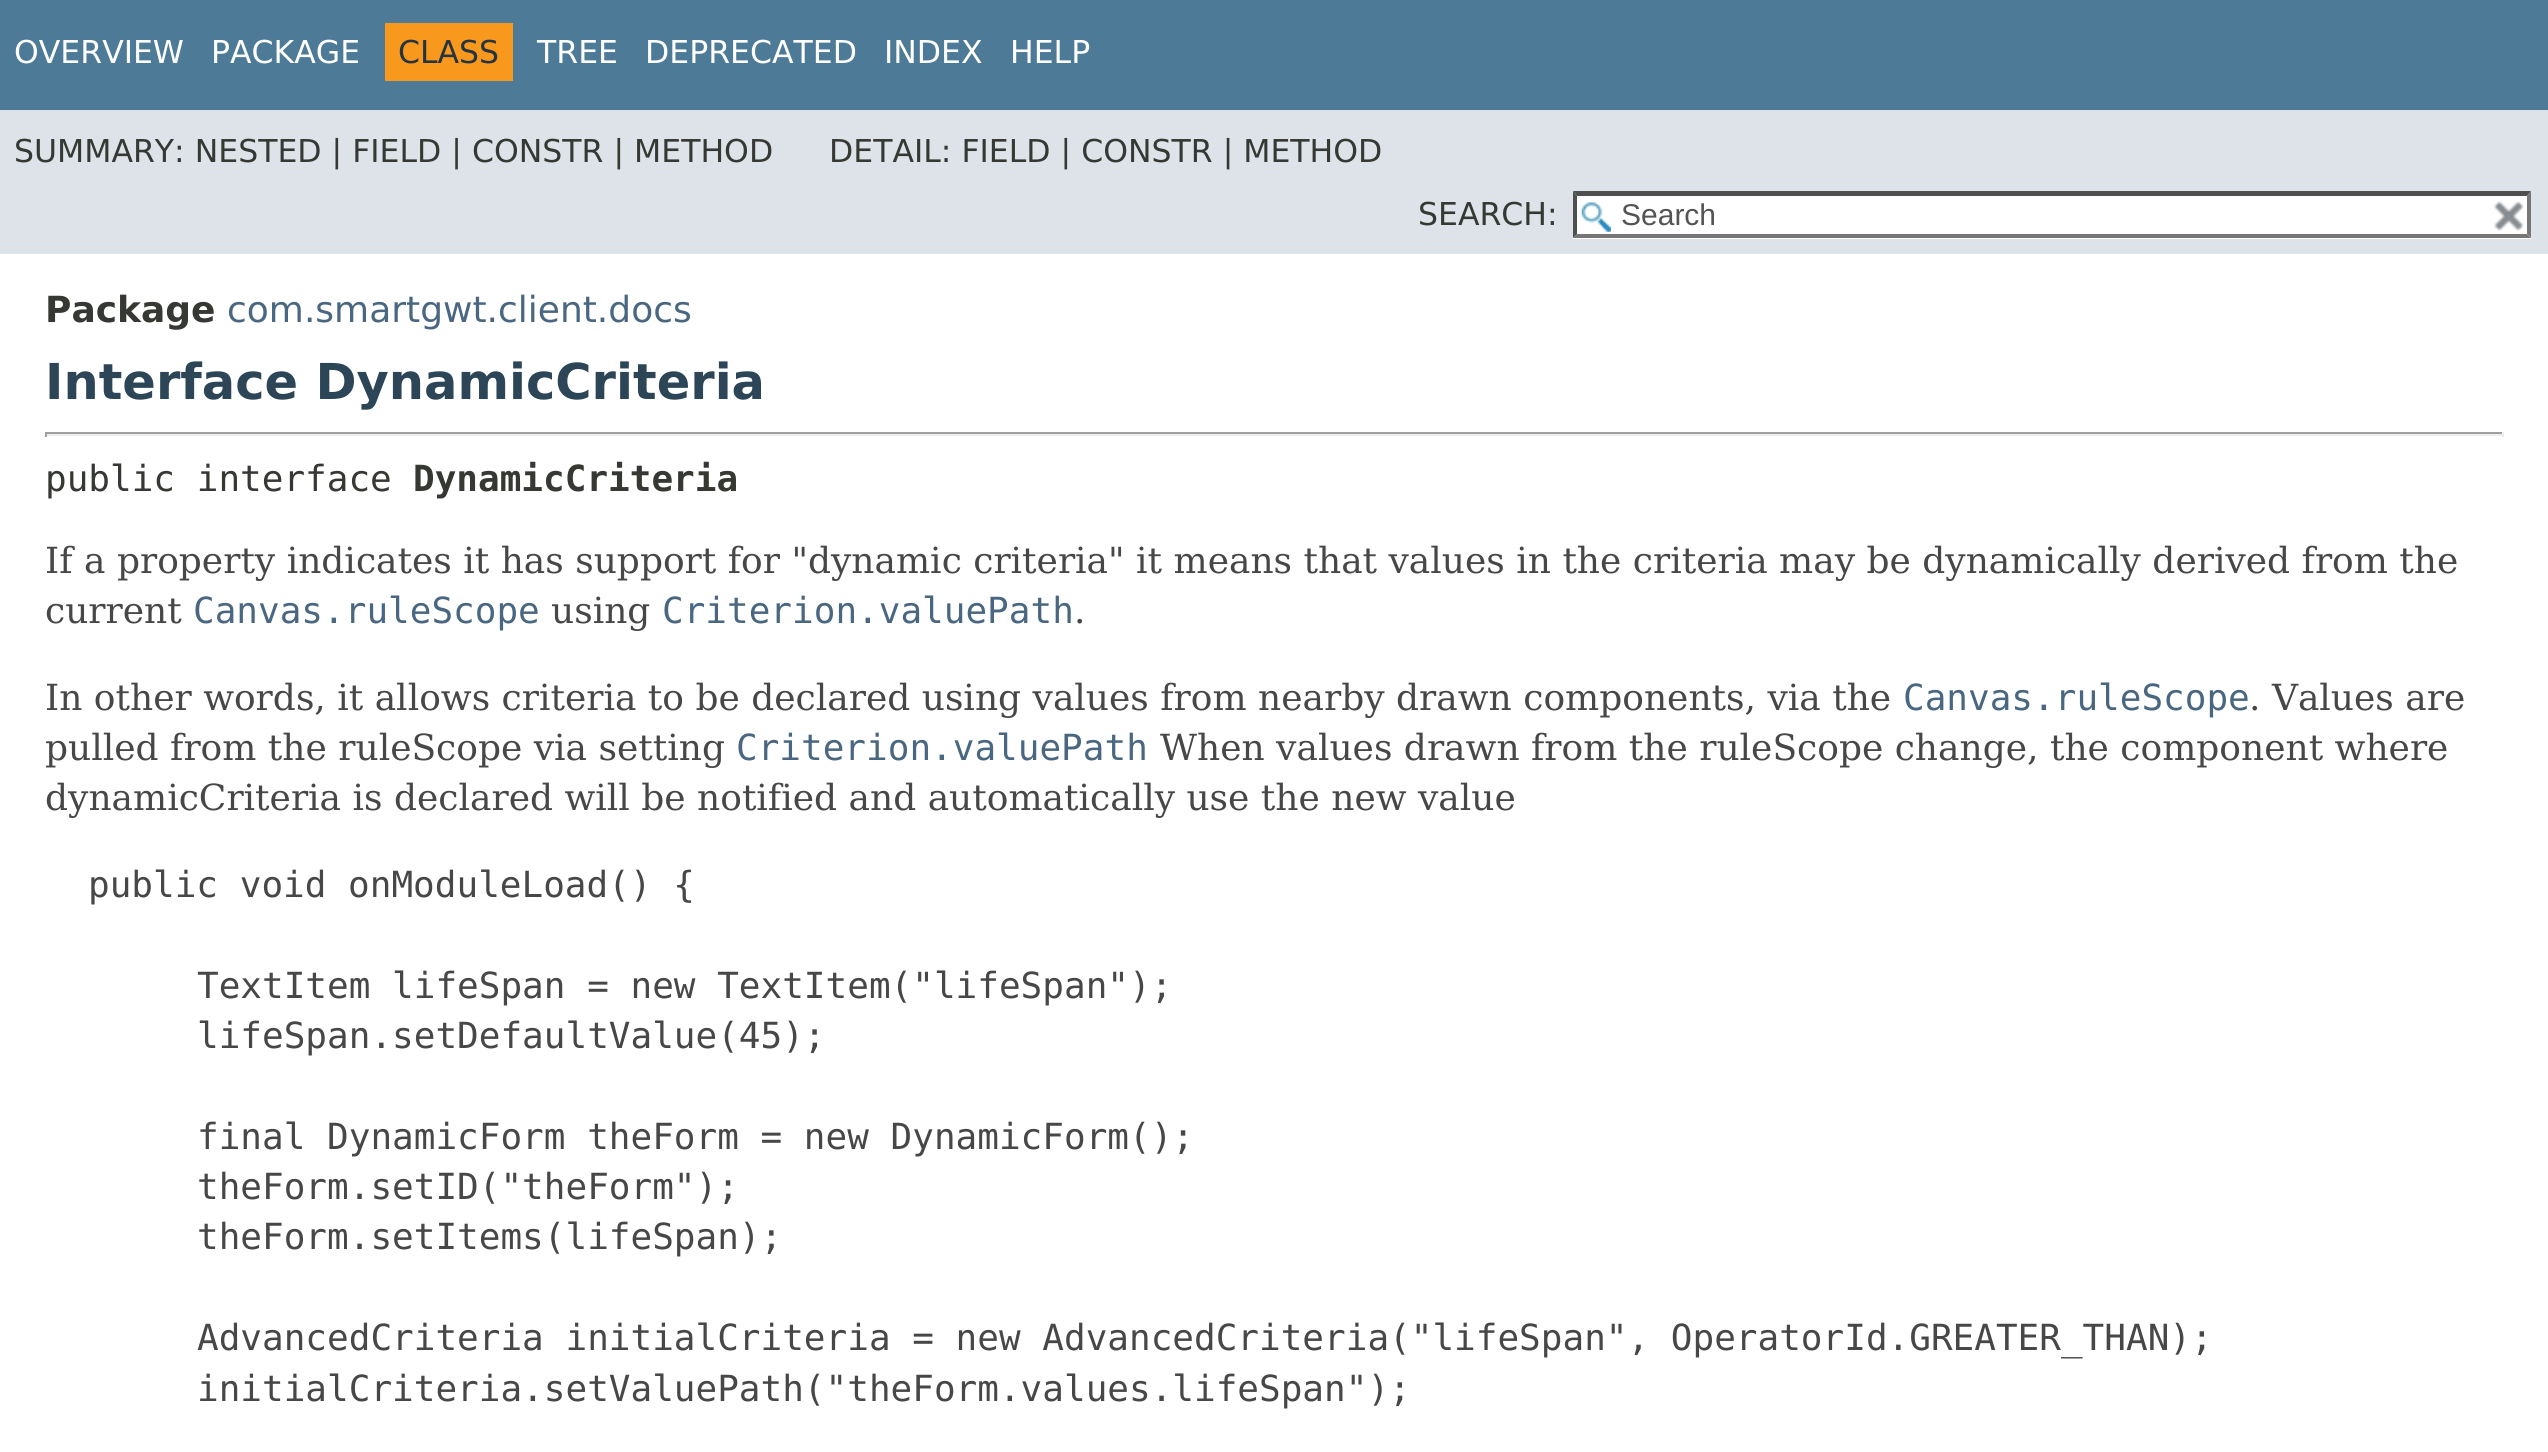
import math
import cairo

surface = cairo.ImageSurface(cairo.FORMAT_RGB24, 2548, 1452)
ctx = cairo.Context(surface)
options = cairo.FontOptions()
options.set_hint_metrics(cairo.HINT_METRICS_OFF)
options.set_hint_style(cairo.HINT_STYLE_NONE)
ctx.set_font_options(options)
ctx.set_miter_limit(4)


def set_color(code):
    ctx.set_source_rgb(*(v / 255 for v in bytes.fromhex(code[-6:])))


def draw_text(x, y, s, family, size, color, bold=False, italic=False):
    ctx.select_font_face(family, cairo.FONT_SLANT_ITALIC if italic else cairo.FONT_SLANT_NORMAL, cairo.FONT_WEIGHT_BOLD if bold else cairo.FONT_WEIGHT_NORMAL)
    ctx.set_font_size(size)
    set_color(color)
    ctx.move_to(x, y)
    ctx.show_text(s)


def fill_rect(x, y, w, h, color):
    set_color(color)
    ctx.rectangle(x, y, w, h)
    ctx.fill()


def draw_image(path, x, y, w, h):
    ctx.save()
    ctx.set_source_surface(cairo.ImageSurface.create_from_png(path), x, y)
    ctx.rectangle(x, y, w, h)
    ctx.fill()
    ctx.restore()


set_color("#ffffff")
ctx.paint()
fill_rect(0, 0, 2548, 110, "#4d7a97")
draw_text(14, 63, "OVERVIEW", "DejaVu Sans", 31.5, "#ffffff")
draw_text(211, 63, "PACKAGE", "DejaVu Sans", 31.5, "#ffffff")
fill_rect(385, 23, 128, 58, "#f8981d")
draw_text(398, 63, "CLASS", "DejaVu Sans", 31.5, "#253441")
draw_text(537, 63, "TREE", "DejaVu Sans", 31.5, "#ffffff")
draw_text(645, 63, "DEPRECATED", "DejaVu Sans", 31.5, "#ffffff")
draw_text(884, 63, "INDEX", "DejaVu Sans", 31.5, "#ffffff")
draw_text(1010, 63, "HELP", "DejaVu Sans", 31.5, "#ffffff")
fill_rect(0, 110, 2548, 144, "#dee3e9")
draw_text(14, 162, "SUMMARY: NESTED | FIELD | CONSTR | METHOD", "DejaVu Sans", 31.5, "#353833")
draw_text(829, 162, "DETAIL: FIELD | CONSTR | METHOD", "DejaVu Sans", 31.5, "#353833")
draw_text(1418, 225, "SEARCH:", "DejaVu Sans", 31.5, "#353833")
fill_rect(1573, 191, 958, 48, "#ffffff")
draw_image("assets/img1.png", 1581, 202, 30, 30)
set_color("#4f4f4f")
ctx.new_path()
ctx.move_to(1573, 191)
ctx.line_to(2531, 191)
ctx.line_to(2527, 196)
ctx.line_to(1577, 196)
ctx.close_path()
ctx.fill()
set_color("#767676")
ctx.new_path()
ctx.move_to(2531, 191)
ctx.line_to(2531, 238)
ctx.line_to(2527, 234)
ctx.line_to(2527, 196)
ctx.close_path()
ctx.fill()
ctx.new_path()
ctx.move_to(2531, 238)
ctx.line_to(1573, 238)
ctx.line_to(1577, 234)
ctx.line_to(2527, 234)
ctx.close_path()
ctx.fill()
set_color("#4f4f4f")
ctx.new_path()
ctx.move_to(1573, 238)
ctx.line_to(1573, 191)
ctx.line_to(1577, 196)
ctx.line_to(1577, 234)
ctx.close_path()
ctx.fill()
draw_text(1621, 225, "Search", "Liberation Sans", 30, "#545454")
draw_image("assets/img2.png", 2493, 201, 31, 30)
draw_text(45, 322, "Package", "DejaVu Sans", 36, "#353833", bold=True)
draw_text(227, 322, "com.smartgwt.client.docs", "DejaVu Sans", 36, "#4a6782")
draw_text(45, 399, "Interface DynamicCriteria", "DejaVu Sans", 49.5, "#2c4557", bold=True)
fill_rect(45, 432, 2459, 2, "#9f9f9f")
fill_rect(2502, 432, 2, 5, "#eeeeee")
fill_rect(45, 434, 2459, 2, "#eeeeee")
fill_rect(45, 432, 2, 5, "#9f9f9f")
draw_text(45, 491, "public interface", "DejaVu Sans Mono", 36, "#353833")
draw_text(413, 491, "DynamicCriteria", "DejaVu Sans Mono", 36, "#353833", bold=True)
draw_text(45, 573, "If a property indicates it has support for \"dynamic criteria\" it means that values in the criteria may be dynamically derived from the", "DejaVu Serif", 36, "#474747")
draw_text(45, 623, "current", "DejaVu Serif", 36, "#474747")
draw_text(193, 623, "Canvas.ruleScope", "DejaVu Sans Mono", 36, "#4a6782")
draw_text(551, 623, "using", "DejaVu Serif", 36, "#474747")
draw_text(662, 623, "Criterion.valuePath", "DejaVu Sans Mono", 36, "#4a6782")
draw_text(1074, 623, ".", "DejaVu Serif", 36, "#474747")
draw_text(45, 710, "In other words, it allows criteria to be declared using values from nearby drawn components, via the", "DejaVu Serif", 36, "#474747")
draw_text(1903, 710, "Canvas.ruleScope", "DejaVu Sans Mono", 36, "#4a6782")
draw_text(2249, 710, ". Values are", "DejaVu Serif", 36, "#474747")
draw_text(45, 760, "pulled from the ruleScope via setting", "DejaVu Serif", 36, "#474747")
draw_text(736, 760, "Criterion.valuePath", "DejaVu Sans Mono", 36, "#4a6782")
draw_text(1160, 760, "When values drawn from the ruleScope change, the component where", "DejaVu Serif", 36, "#474747")
draw_text(45, 810, "dynamicCriteria is declared will be notified and automatically use the new value", "DejaVu Serif", 36, "#474747")
draw_text(88, 897, "public void onModuleLoad() {", "DejaVu Sans Mono", 36, "#474747")
draw_text(197, 998, "TextItem lifeSpan = new TextItem(\"lifeSpan\");", "DejaVu Sans Mono", 36, "#474747")
draw_text(197, 1048, "lifeSpan.setDefaultValue(45);", "DejaVu Sans Mono", 36, "#474747")
draw_text(197, 1149, "final DynamicForm theForm = new DynamicForm();", "DejaVu Sans Mono", 36, "#474747")
draw_text(197, 1199, "theForm.setID(\"theForm\");", "DejaVu Sans Mono", 36, "#474747")
draw_text(197, 1249, "theForm.setItems(lifeSpan);", "DejaVu Sans Mono", 36, "#474747")
draw_text(197, 1350, "AdvancedCriteria initialCriteria = new AdvancedCriteria(\"lifeSpan\", OperatorId.GREATER_THAN);", "DejaVu Sans Mono", 36, "#474747")
draw_text(197, 1401, "initialCriteria.setValuePath(\"theForm.values.lifeSpan\");", "DejaVu Sans Mono", 36, "#474747")
surface.write_to_png("output.png")
